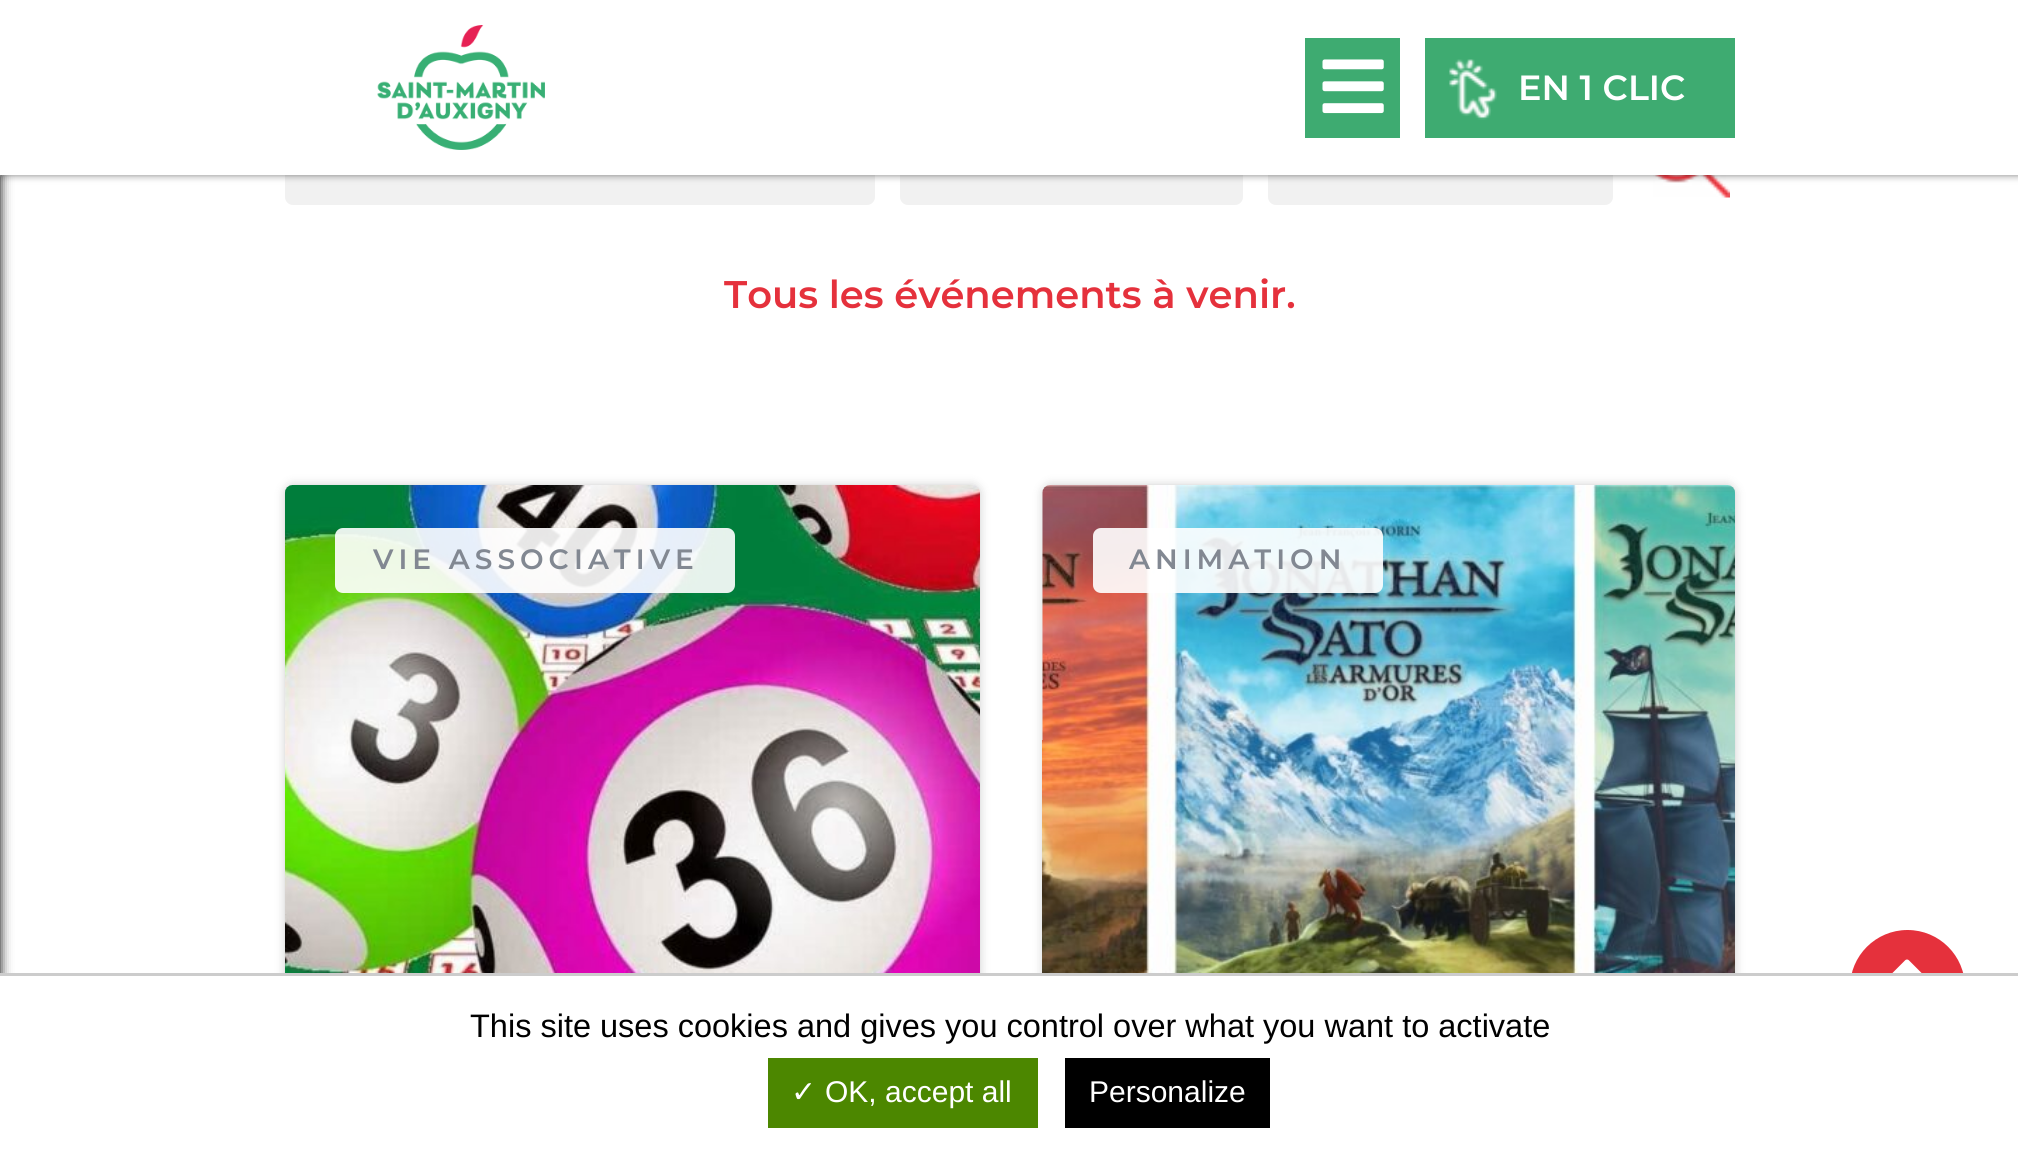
import math
import cairo

surface = cairo.ImageSurface(cairo.FORMAT_RGB24, 2018, 1150)
ctx = cairo.Context(surface)
options = cairo.FontOptions()
options.set_hint_metrics(cairo.HINT_METRICS_OFF)
options.set_hint_style(cairo.HINT_STYLE_NONE)
ctx.set_font_options(options)
ctx.set_miter_limit(4)


def set_color(code):
    ctx.set_source_rgb(*(v / 255 for v in bytes.fromhex(code[-6:])))


def draw_text(x, y, s, family, size, color, bold=False, italic=False):
    ctx.select_font_face(family, cairo.FONT_SLANT_ITALIC if italic else cairo.FONT_SLANT_NORMAL, cairo.FONT_WEIGHT_BOLD if bold else cairo.FONT_WEIGHT_NORMAL)
    ctx.set_font_size(size)
    set_color(color)
    ctx.move_to(x, y)
    ctx.show_text(s)


def draw_spaced(x, y, s, letter, word):
    ctx.move_to(x, y)
    for ch in s:
        ctx.show_text(ch)
        ctx.rel_move_to(letter + word * (ch == ' '), 0)


def fill_rect(x, y, w, h, color):
    set_color(color)
    ctx.rectangle(x, y, w, h)
    ctx.fill()


def rounded_rect(x, y, w, h, r):
    ctx.new_sub_path()
    for i, (u, v) in enumerate([(x + w - r, y + h - r), (x + r, y + h - r), (x + r, y + r), (x + w - r, y + r)]):
        ctx.arc(u, v, r, i * math.pi / 2, (i + 1) * math.pi / 2)
    ctx.close_path()


def draw_shadow(x, y, w, h, r, blur, alpha):
    ctx.push_group_with_content(cairo.CONTENT_ALPHA)
    ctx.set_operator(cairo.OPERATOR_SOURCE)
    for i in range(15, -16, -2):
        e = blur * i / 6
        if min(w, h) + 2 * e > 0:
            ctx.set_source_rgba(0, 0, 0, alpha * math.erfc((i - 1) / 8.5) / 2)
            rounded_rect(x - e, y - e, w + 2 * e, h + 2 * e, max(0, min(r + e + blur * .6, min(w, h) / 2 + e)))
            ctx.fill()
    ctx.mask(ctx.pop_group())


def draw_image(path, x, y, w, h):
    ctx.save()
    ctx.set_source_surface(cairo.ImageSurface.create_from_png(path), x, y)
    ctx.rectangle(x, y, w, h)
    ctx.fill()
    ctx.restore()


set_color("#ffffff")
ctx.paint()
set_color("#f1f1f1")
rounded_rect(286.5, 101.5, 587, 102, 6.5)
ctx.fill_preserve()
ctx.set_line_width(3)
ctx.stroke()
rounded_rect(901.5, 101.5, 340, 102, 6.5)
ctx.fill_preserve()
ctx.stroke()
rounded_rect(1269.5, 101.5, 342, 102, 6.5)
ctx.fill_preserve()
ctx.stroke()
draw_image("assets/img4.png", 1653, 175, 77, 23)
set_color("#000000")
draw_shadow(0, 0, 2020, 175, 0, 4, 0.5)
draw_shadow(-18, 175, 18, 975, 0, 6, 1)
fill_rect(0, 0, 2018, 175, "#ffffff")
draw_image("assets/img1.png", 377, 25, 168, 125)
fill_rect(1305, 38, 95, 100, "#3eab71")
draw_image("assets/img2.png", 1322, 59, 62, 55)
fill_rect(1425, 38, 310, 100, "#3eab71")
draw_image("assets/img3.png", 1449, 59, 48, 61)
draw_text(1518, 100, "EN 1 CLIC", "Montserrat SemiBold", 35, "#ffffff")
draw_text(724, 308, "Tous les événements à venir.", "Montserrat SemiBold", 38.5, "#e5313c")
set_color("#000000")
draw_shadow(285, 485, 695, 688, 8, 5, 0.2)
draw_image("assets/img5.png", 285, 485, 695, 488)
ctx.set_source_rgba(1, 1, 1, 0.9)
rounded_rect(335, 528, 400, 65, 8)
ctx.fill()
ctx.set_font_size(28)
set_color("#828892")
draw_spaced(373, 569, "VIE ASSOCIATIVE", 5, 0)
set_color("#000000")
draw_shadow(1043, 485, 692, 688, 8, 5, 0.2)
draw_image("assets/img6.png", 1042, 485, 693, 488)
ctx.set_source_rgba(1, 1, 1, 0.9)
rounded_rect(1093, 528, 290, 65, 8)
ctx.fill()
set_color("#828892")
draw_spaced(1129, 569, "ANIMATION", 5, 0)
set_color("#e5313c")
ctx.new_path()
ctx.arc(1907.5, 987.5, 60, 0, 2 * math.pi)
ctx.fill_preserve()
set_color("#ffffff")
ctx.set_line_width(5)
ctx.stroke()
draw_image("assets/img7.png", 1892, 959, 30, 14)
fill_rect(0, 976, 1970, 174, "#ffffff")
fill_rect(0, 973, 2018, 3, "#cccccc")
draw_text(470, 1037, "This site uses cookies and gives you control over what you want to activate", "Liberation Sans", 32.5, "#000000")
fill_rect(768, 1058, 270, 70, "#4c8700")
draw_text(791, 1102, "✓", "DejaVu Sans", 30, "#ffffff")
draw_text(825, 1102, "OK, accept all", "Liberation Sans", 30, "#ffffff")
fill_rect(1065, 1058, 205, 70, "#000000")
draw_text(1089, 1102, "Personalize", "Liberation Sans", 30, "#ffffff")
surface.write_to_png("output.png")
